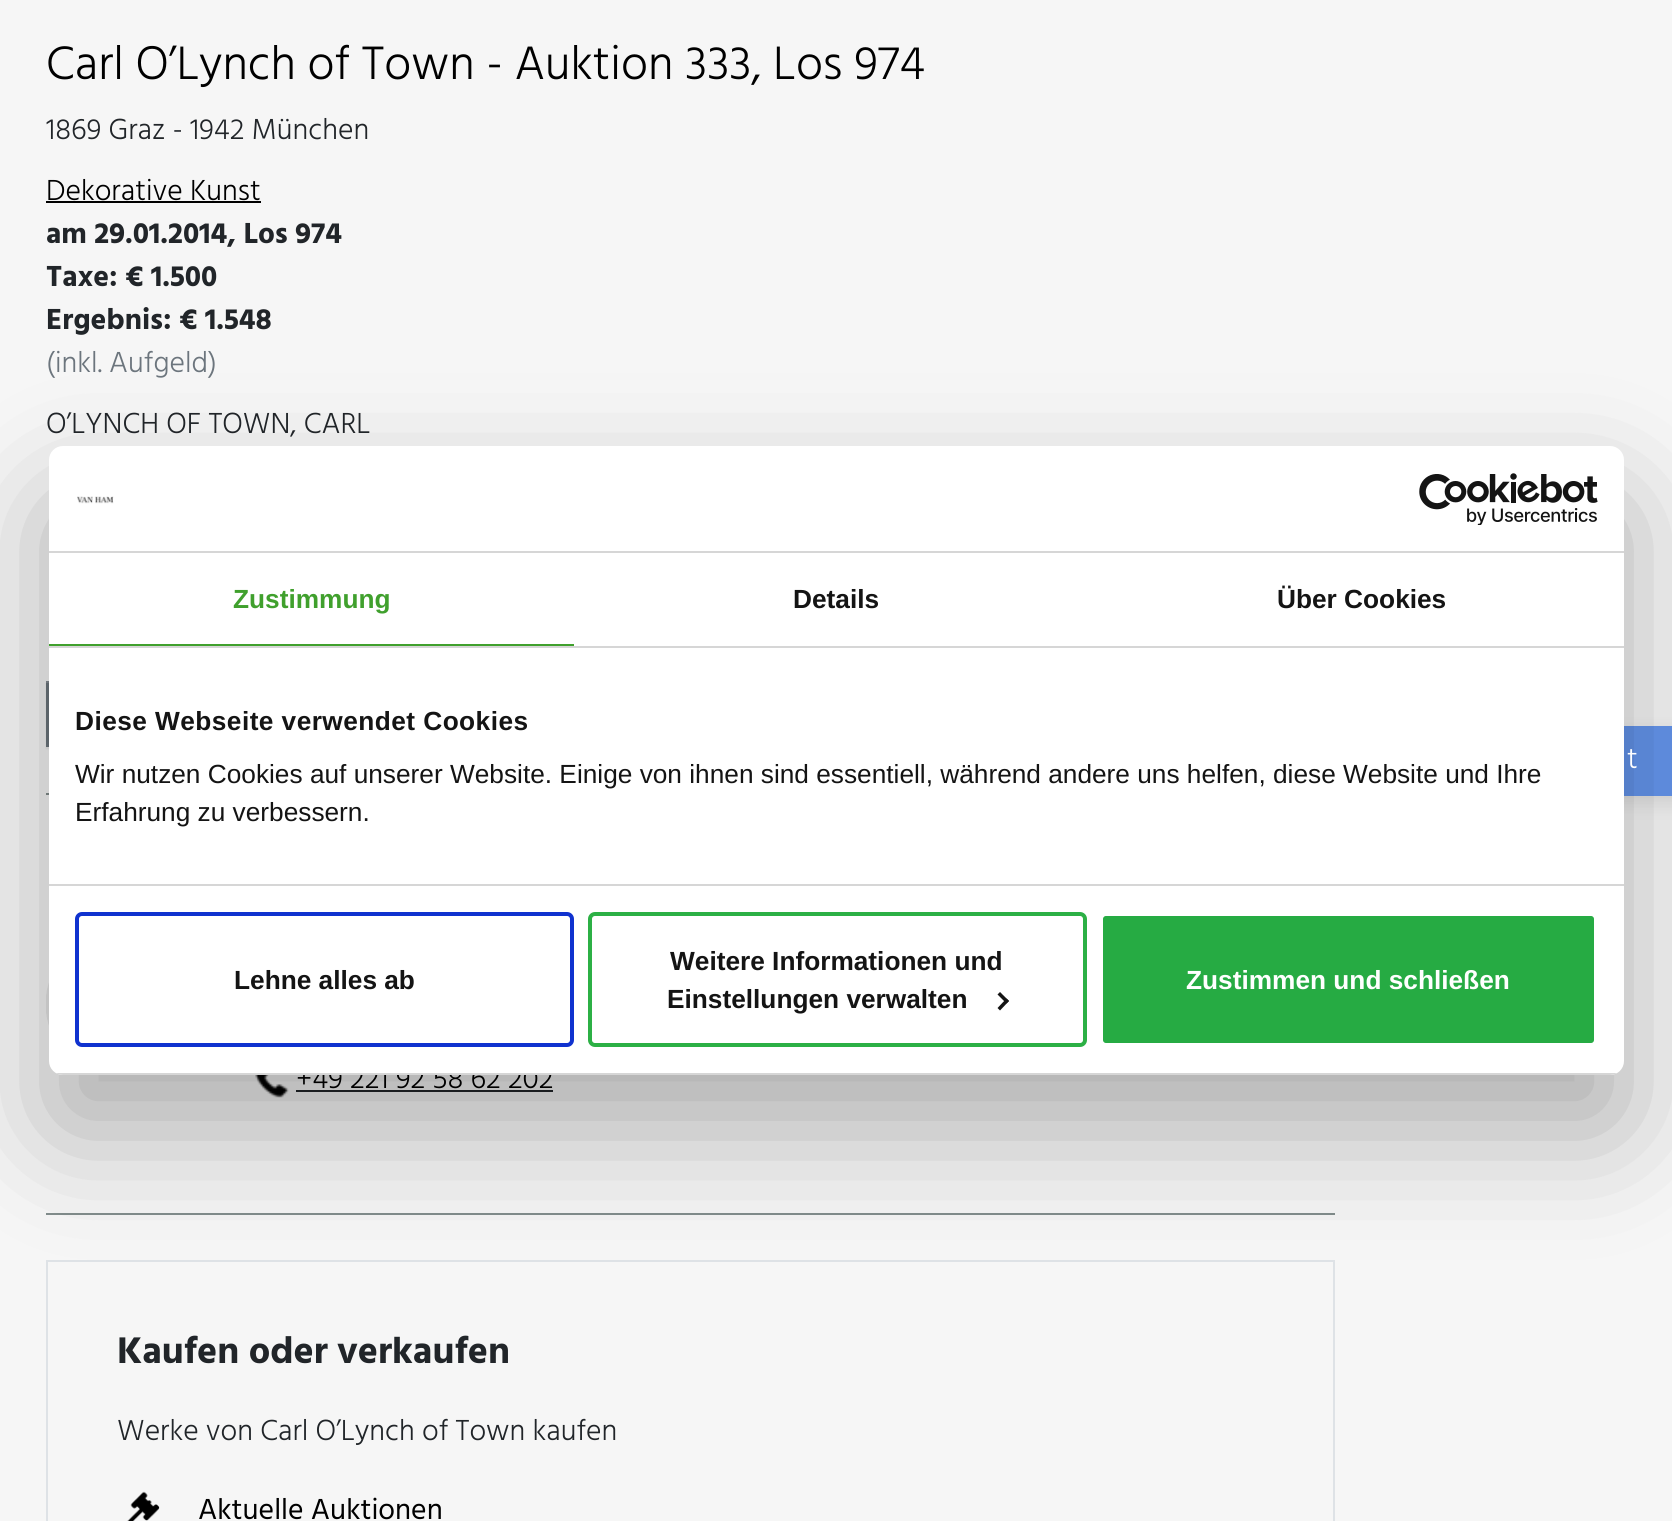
import math
import cairo

surface = cairo.ImageSurface(cairo.FORMAT_RGB24, 1672, 1521)
ctx = cairo.Context(surface)
options = cairo.FontOptions()
options.set_hint_metrics(cairo.HINT_METRICS_OFF)
options.set_hint_style(cairo.HINT_STYLE_NONE)
ctx.set_font_options(options)
ctx.set_miter_limit(4)


def set_color(code):
    ctx.set_source_rgb(*(v / 255 for v in bytes.fromhex(code[-6:])))


def draw_text(x, y, s, family, size, color, bold=False, italic=False):
    ctx.select_font_face(family, cairo.FONT_SLANT_ITALIC if italic else cairo.FONT_SLANT_NORMAL, cairo.FONT_WEIGHT_BOLD if bold else cairo.FONT_WEIGHT_NORMAL)
    ctx.set_font_size(size)
    set_color(color)
    ctx.move_to(x, y)
    ctx.show_text(s)


def draw_spaced(x, y, s, letter, word):
    ctx.move_to(x, y)
    for ch in s:
        ctx.show_text(ch)
        ctx.rel_move_to(letter + word * (ch == ' '), 0)


def fill_rect(x, y, w, h, color):
    set_color(color)
    ctx.rectangle(x, y, w, h)
    ctx.fill()


def rounded_rect(x, y, w, h, r):
    ctx.new_sub_path()
    for i, (u, v) in enumerate([(x + w - r, y + h - r), (x + r, y + h - r), (x + r, y + r), (x + w - r, y + r)]):
        ctx.arc(u, v, r, i * math.pi / 2, (i + 1) * math.pi / 2)
    ctx.close_path()


def draw_shadow(x, y, w, h, r, blur, alpha):
    ctx.push_group_with_content(cairo.CONTENT_ALPHA)
    ctx.set_operator(cairo.OPERATOR_SOURCE)
    for i in range(15, -16, -2):
        e = blur * i / 6
        if min(w, h) + 2 * e > 0:
            ctx.set_source_rgba(0, 0, 0, alpha * math.erfc((i - 1) / 8.5) / 2)
            rounded_rect(x - e, y - e, w + 2 * e, h + 2 * e, max(0, min(r + e + blur * .6, min(w, h) / 2 + e)))
            ctx.fill()
    ctx.mask(ctx.pop_group())


def draw_image(path, x, y, w, h):
    ctx.save()
    ctx.set_source_surface(cairo.ImageSurface.create_from_png(path), x, y)
    ctx.rectangle(x, y, w, h)
    ctx.fill()
    ctx.restore()


set_color("#f6f6f6")
ctx.paint()
draw_text(46, 79, "Carl O’Lynch of Town - Auktion 333, Los 974", "Hind Light", 48.1, "#000000")
draw_text(46, 139, "1869 Graz - 1942 München", "Hind Light", 29.75, "#212529")
draw_text(46, 200, "Dekorative Kunst", "Hind Light", 29.75, "#000000")
fill_rect(46, 201, 215, 2, "#000000")
draw_text(46, 243, "am 29.01.2014, Los 974", "Hind", 29.75, "#212529", bold=True)
draw_text(46, 286, "Taxe: € 1.500", "Hind", 29.75, "#212529", bold=True)
draw_text(46, 329, "Ergebnis: € 1.548", "Hind", 29.75, "#212529", bold=True)
draw_text(46, 372, "(inkl. Aufgeld)", "Hind Light", 29.75, "#6c757d")
draw_text(46, 433, "O’LYNCH OF TOWN, CARL", "Hind Light", 29.75, "#212529")
set_color("#000000")
draw_shadow(46, 683, 619, 66, 0, 1, 0.07)
fill_rect(46, 683, 3, 64, "#6c757d")
fill_rect(46, 681, 3, 2, "#828a91")
fill_rect(46, 793, 3, 2, "#828d8c")
fill_rect(46, 1213, 1289, 2, "#828d8c")
draw_image("assets/img1.png", 46, 982, 3, 44)
draw_image("assets/img2.png", 255, 1075, 34, 23)
draw_text(296, 1088, "+49 221 92 58 62 202", "Hind Light", 29.75, "#000000")
fill_rect(296, 1090, 257, 2, "#212529")
ctx.rectangle(47, 1261, 1287, 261)
set_color("#dee2e6")
ctx.stroke()
draw_text(117, 1363, "Kaufen oder verkaufen", "Hind", 38, "#212529", bold=True)
draw_text(117, 1440, "Werke von Carl O’Lynch of Town kaufen", "Hind Light", 29.75, "#212529")
draw_image("assets/img3.png", 127, 1491, 33, 30)
draw_text(198, 1519, "Aktuelle Auktionen", "Hind", 29.75, "#000000")
set_color("#000000")
draw_shadow(1505, 733, 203, 70, 35, 9, 0.1)
fill_rect(1624, 726, 48, 70, "#6495ed")
set_color("#000000")
draw_shadow(49, 502, 1575, 629, 14, 59.5, 0.3)
set_color("#ffffff")
rounded_rect(49, 446, 1575, 629, 14)
ctx.fill()
fill_rect(49, 551, 1575, 2, "#d6d6d6")
draw_image("assets/img4.png", 77, 496, 37, 8)
draw_image("assets/img5.png", 1419, 473, 179, 52)
fill_rect(49, 646, 1575, 2, "#d6d6d6")
fill_rect(49, 644, 525, 2, "#40a02d")
draw_text(233, 608, "Zustimmung", "Liberation Sans", 26.25, "#40a02d", bold=True)
draw_text(793, 608, "Details", "Liberation Sans", 26.25, "#141414", bold=True)
draw_text(1277, 608, "Über Cookies", "Liberation Sans", 26.25, "#141414", bold=True)
fill_rect(49, 884, 1575, 2, "#d6d6d6")
set_color("#141414")
draw_spaced(75, 730, "Diese Webseite verwendet Cookies", 0.45, 0)
draw_text(75, 783, "Wir nutzen Cookies auf unserer Website. Einige von ihnen sind essentiell, während andere uns helfen, diese Website und Ihre", "Liberation Sans", 26.25, "#141414")
draw_text(75, 821, "Erfahrung zu verbessern.", "Liberation Sans", 26.25, "#141414")
ctx.save()
rounded_rect(49, 446, 1575, 629, 14)
ctx.clip()
fill_rect(49, 1073, 1575, 2, "#d6d6d6")
ctx.restore()
rounded_rect(77, 914, 495, 131, 5)
set_color("#1032cf")
ctx.set_line_width(4)
ctx.stroke()
draw_text(234, 989, "Lehne alles ab", "Liberation Sans", 26.25, "#141414", bold=True)
rounded_rect(590, 914, 495, 131, 5)
set_color("#2cb045")
ctx.stroke()
draw_text(670, 970, "Weitere Informationen und", "Liberation Sans", 26.25, "#141414", bold=True)
draw_text(667, 1008, "Einstellungen verwalten", "Liberation Sans", 26.25, "#141414", bold=True)
ctx.new_path()
ctx.move_to(1000, 992)
ctx.line_to(1009, 1001)
ctx.line_to(1006.5, 1003.5)
ctx.line_to(997.5, 994.5)
ctx.close_path()
ctx.fill()
ctx.new_path()
ctx.move_to(1006.5, 998.5)
ctx.line_to(1009, 1001)
ctx.line_to(1000, 1010.5)
ctx.line_to(997.5, 1008)
ctx.close_path()
ctx.fill()
set_color("#26ab43")
rounded_rect(1101, 914, 495, 131, 5)
ctx.fill_preserve()
set_color("#ffffff")
ctx.stroke()
draw_text(1186, 989, "Zustimmen und schließen", "Liberation Sans", 26.25, "#ffffff", bold=True)
draw_text(1627, 768, "t", "Hind Light", 29.75, "#ffffff")
surface.write_to_png("output.png")
